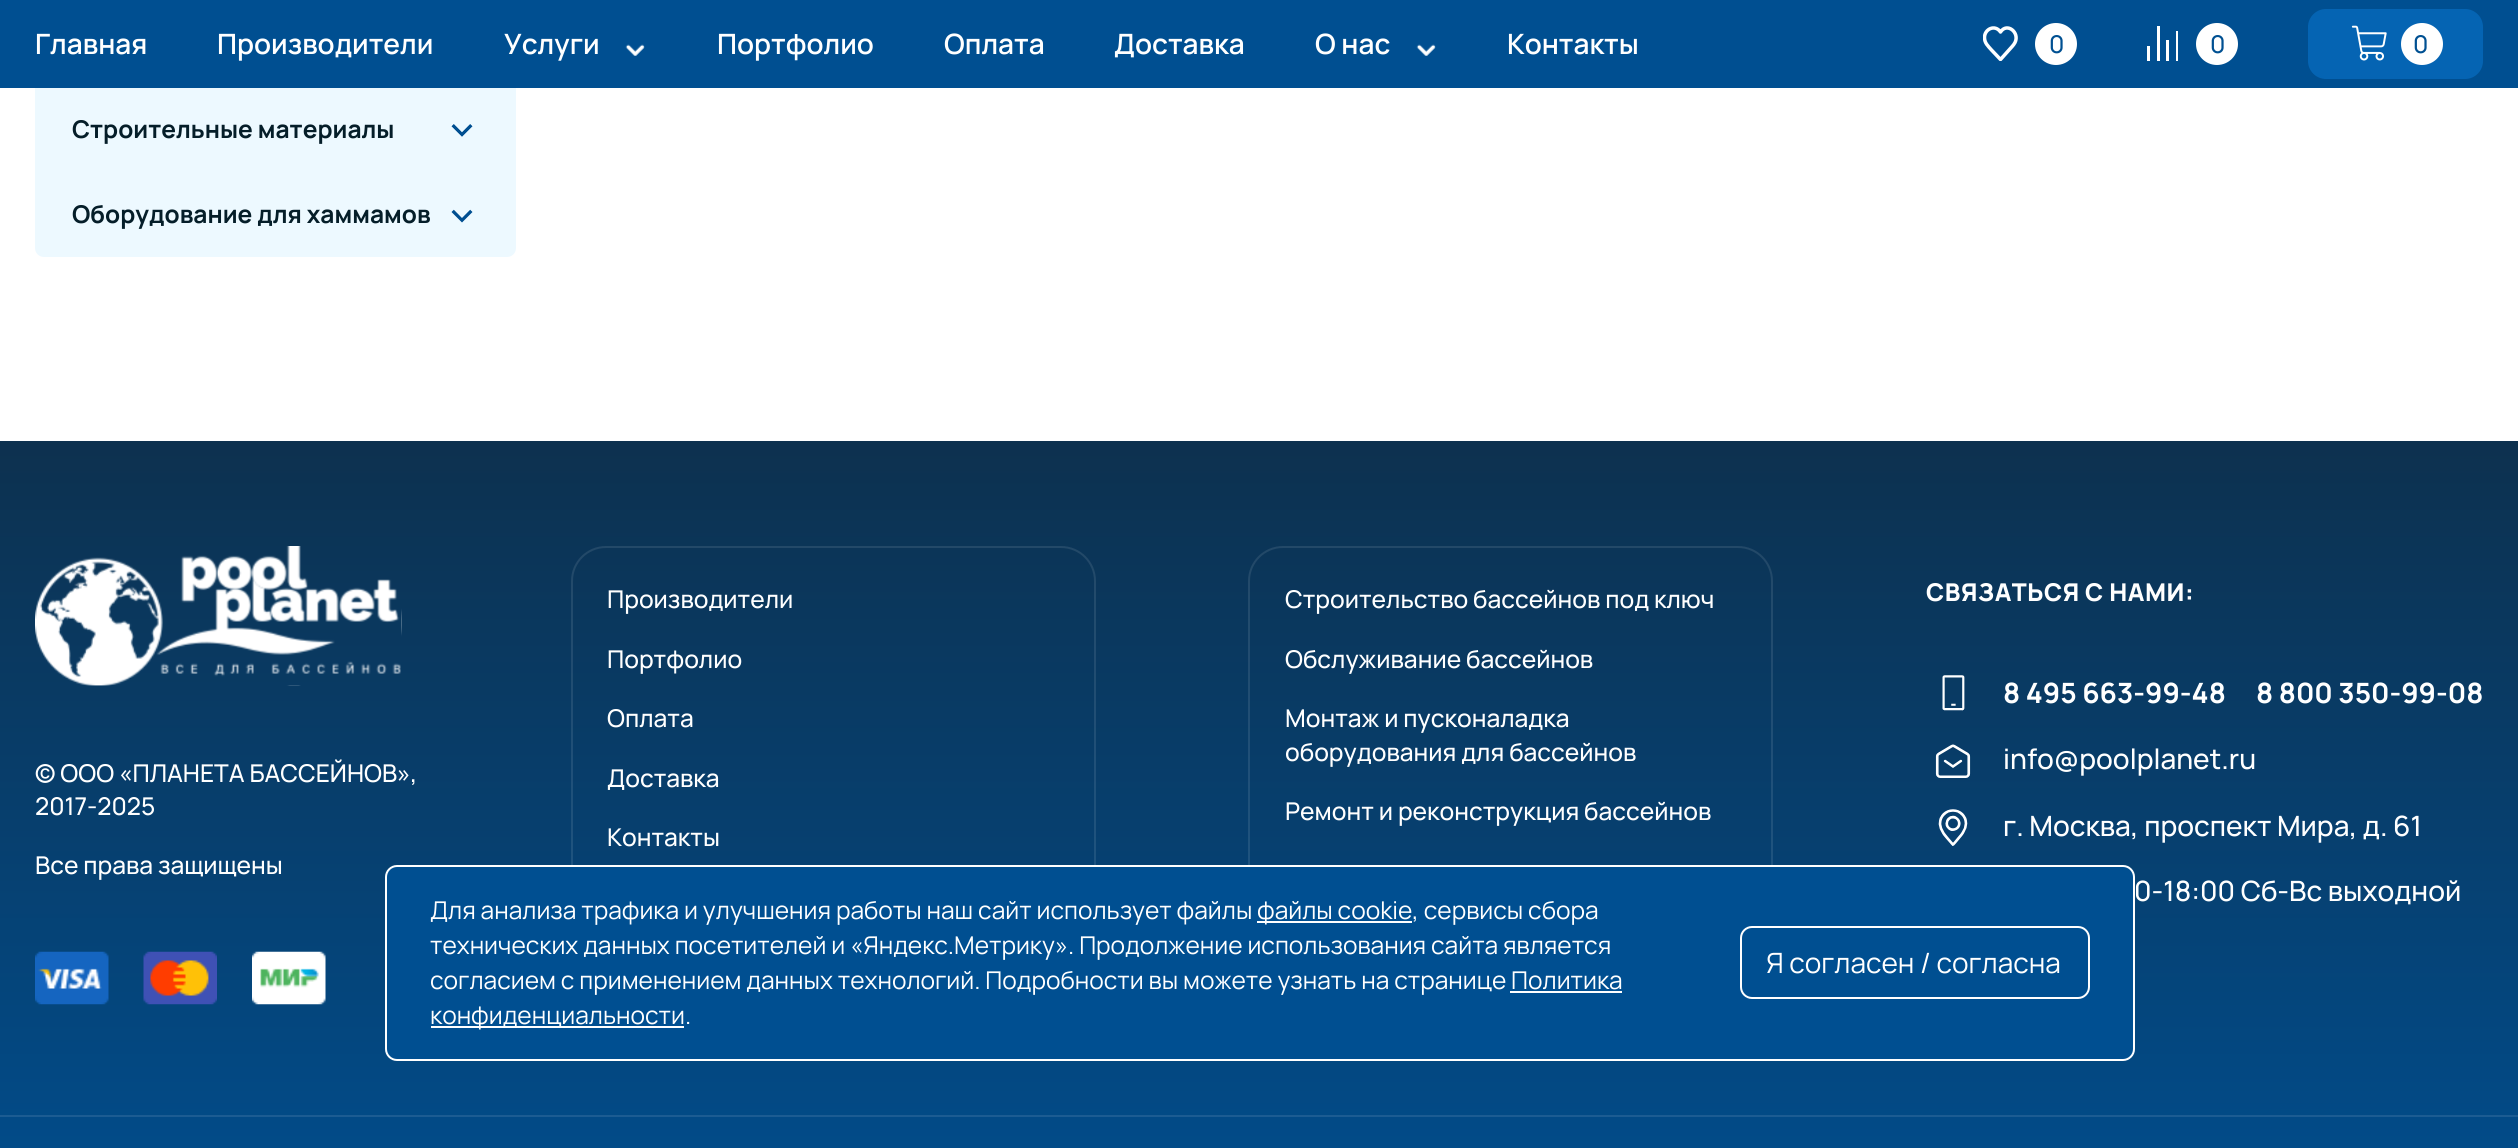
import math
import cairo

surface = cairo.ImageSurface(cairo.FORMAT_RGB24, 2518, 1148)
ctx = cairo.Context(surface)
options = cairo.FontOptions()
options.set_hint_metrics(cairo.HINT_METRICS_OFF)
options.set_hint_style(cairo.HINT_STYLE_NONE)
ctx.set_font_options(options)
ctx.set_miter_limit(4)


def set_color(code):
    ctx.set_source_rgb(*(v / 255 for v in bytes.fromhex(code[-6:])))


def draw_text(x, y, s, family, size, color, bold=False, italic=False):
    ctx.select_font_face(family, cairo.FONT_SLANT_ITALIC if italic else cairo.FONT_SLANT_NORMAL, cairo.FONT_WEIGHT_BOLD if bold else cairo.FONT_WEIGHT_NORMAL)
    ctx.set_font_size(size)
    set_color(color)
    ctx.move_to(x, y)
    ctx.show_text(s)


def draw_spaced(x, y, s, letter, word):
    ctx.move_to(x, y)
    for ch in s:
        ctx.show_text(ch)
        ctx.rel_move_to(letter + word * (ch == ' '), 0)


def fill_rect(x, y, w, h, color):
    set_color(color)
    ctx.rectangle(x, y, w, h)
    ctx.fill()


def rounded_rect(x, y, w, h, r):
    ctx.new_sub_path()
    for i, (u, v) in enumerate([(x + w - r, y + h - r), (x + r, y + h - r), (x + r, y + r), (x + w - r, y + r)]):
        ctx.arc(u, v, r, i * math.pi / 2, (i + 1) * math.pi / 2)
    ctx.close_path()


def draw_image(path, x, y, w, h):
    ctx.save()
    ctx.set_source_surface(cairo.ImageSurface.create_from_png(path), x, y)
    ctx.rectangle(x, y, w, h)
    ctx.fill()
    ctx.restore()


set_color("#ffffff")
ctx.paint()
fill_rect(0, 0, 2518, 88, "#004f91")
draw_text(35, 54, "Главная", "Manrope SemiBold", 28, "#ffffff")
draw_text(217, 54, "Производители", "Manrope SemiBold", 28, "#ffffff")
draw_text(504, 54, "Услуги", "Manrope SemiBold", 28, "#ffffff")
draw_image("assets/img1.png", 625, 44, 20, 12)
draw_text(717, 54, "Портфолио", "Manrope SemiBold", 28, "#ffffff")
draw_text(944, 54, "Оплата", "Manrope SemiBold", 28, "#ffffff")
draw_text(1114, 54, "Доставка", "Manrope SemiBold", 28, "#ffffff")
draw_text(1315, 54, "О нас", "Manrope SemiBold", 28, "#ffffff")
draw_image("assets/img1.png", 1416, 44, 20, 12)
draw_text(1507, 54, "Контакты", "Manrope SemiBold", 28, "#ffffff")
ctx.save()
ctx.rectangle(1983, 26, 35, 35)
ctx.clip()
ctx.new_path()
ctx.move_to(1984.5, 37.5)
ctx.curve_to(1984.5, 43, 1988, 46, 1991.5, 50)
ctx.line_to(2000.5, 59.5)
ctx.line_to(2009, 50)
ctx.curve_to(2011, 47.5, 2013.5, 45.5, 2015, 42.5)
ctx.curve_to(2020, 32.5, 2007, 22, 2000.5, 32)
ctx.curve_to(1995, 24, 1984.5, 29, 1984.5, 37.5)
ctx.close_path()
ctx.set_line_width(3.5)
ctx.set_line_cap(cairo.LINE_CAP_ROUND)
ctx.set_line_join(cairo.LINE_JOIN_ROUND)
ctx.stroke()
ctx.restore()
ctx.arc(2056, 44, 21, 0, 2 * math.pi)
ctx.fill()
draw_text(2049, 53, "0", "Manrope Medium", 24.5, "#005092")
fill_rect(2147, 46, 3, 15, "#ffffff")
fill_rect(2157, 26, 3, 35, "#ffffff")
fill_rect(2166, 40, 3, 21, "#ffffff")
fill_rect(2176, 31, 2, 30, "#ffffff")
ctx.new_path()
ctx.arc(2217, 44, 21, 0, 2 * math.pi)
ctx.fill()
draw_text(2210, 53, "0", "Manrope Medium", 24.5, "#005092")
set_color("#0564b3")
rounded_rect(2308, 9, 175, 70, 18)
ctx.fill()
draw_image("assets/img2.png", 2351, 25, 36, 36)
set_color("#ffffff")
ctx.arc(2422, 44, 21, 0, 2 * math.pi)
ctx.fill()
draw_text(2413, 53, "0", "Manrope Medium", 24.5, "#005092")
fill_rect(35, 88, 481, 84, "#edf9ff")
draw_text(72, 138, "Строительные материалы", "Manrope", 24.5, "#051e29", bold=True)
draw_image("assets/img3.png", 451, 124, 22, 13)
set_color("#edf9ff")
ctx.new_path()
ctx.move_to(36, 173)
ctx.line_to(515, 173)
ctx.line_to(515, 248)
ctx.curve_to(515, 252.5, 511.5, 256, 507, 256)
ctx.line_to(44, 256)
ctx.curve_to(39.5, 256, 36, 252.5, 36, 248)
ctx.close_path()
ctx.fill_preserve()
ctx.stroke()
draw_text(72, 223, "Оборудование для хаммамов", "Manrope", 24.5, "#051e29", bold=True)
draw_image("assets/img4.png", 451, 209, 22, 14)
gradient = cairo.LinearGradient(1259, 441, 1259, 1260)
gradient.add_color_stop_rgba(0, 0.051, 0.192, 0.31, 1)
gradient.add_color_stop_rgba(1, 0, 0.31, 0.569, 1)
ctx.set_source(gradient)
ctx.rectangle(0, 441, 2518, 707)
ctx.fill()
draw_image("assets/img5.png", 35, 546, 367, 140)
draw_text(35, 782, "© ООО «ПЛАНЕТА БАССЕЙНОВ»,", "Manrope Medium", 24.5, "#ffffff")
draw_text(35, 815, "2017-2025", "Manrope Medium", 24.5, "#ffffff")
draw_text(35, 874, "Все права защищены", "Manrope Medium", 24.5, "#ffffff")
draw_image("assets/img6.png", 35, 951, 74, 54)
draw_image("assets/img7.png", 143, 951, 74, 54)
draw_image("assets/img8.png", 252, 951, 74, 54)
rounded_rect(572, 547, 523, 462, 34)
ctx.set_source_rgba(1, 1, 1, 0.1)
ctx.stroke()
draw_text(607, 608, "Производители", "Manrope Medium", 24.5, "#ffffff")
draw_text(607, 668, "Портфолио", "Manrope Medium", 24.5, "#ffffff")
draw_text(607, 727, "Оплата", "Manrope Medium", 24.5, "#ffffff")
draw_text(607, 787, "Доставка", "Manrope Medium", 24.5, "#ffffff")
draw_text(607, 846, "Контакты", "Manrope Medium", 24.5, "#ffffff")
rounded_rect(1249, 547, 523, 462, 34)
ctx.set_source_rgba(1, 1, 1, 0.1)
ctx.stroke()
draw_text(1285, 608, "Строительство бассейнов под ключ", "Manrope Medium", 24.5, "#ffffff")
draw_text(1285, 668, "Обслуживание бассейнов", "Manrope Medium", 24.5, "#ffffff")
draw_text(1285, 727, "Монтаж и пусконаладка", "Manrope Medium", 24.5, "#ffffff")
draw_text(1285, 761, "оборудования для бассейнов", "Manrope Medium", 24.5, "#ffffff")
draw_text(1285, 820, "Ремонт и реконструкция бассейнов", "Manrope Medium", 24.5, "#ffffff")
ctx.select_font_face("Manrope ExtraBold")
draw_spaced(1926, 601, "СВЯЗАТЬСЯ С НАМИ:", 0.5, 0)
draw_image("assets/img9.png", 1942, 675, 23, 36)
draw_text(2003, 703, "8 495 663-99-48", "Manrope", 28, "#ffffff", bold=True)
draw_text(2256, 703, "8 800 350-99-08", "Manrope", 28, "#ffffff", bold=True)
draw_image("assets/img10.png", 1935, 744, 36, 34)
draw_text(2003, 769, "info@poolplanet.ru", "Manrope Medium", 28, "#ffffff")
draw_image("assets/img11.png", 1938, 809, 30, 37)
draw_text(2003, 836, "г. Москва, проспект Мира, д. 61", "Manrope Medium", 28, "#ffffff")
draw_text(2134, 901, "0-18:00 Сб-Вс выходной", "Manrope Medium", 28, "#ffffff")
fill_rect(0, 1115, 2518, 2, "#1c5c92")
set_color("#004f91")
rounded_rect(386, 866, 1748, 194, 11)
ctx.fill_preserve()
set_color("#ffffff")
ctx.stroke()
draw_text(430, 919, "Для анализа трафика и улучшения работы наш сайт использует файлы", "Manrope", 24.5, "#ffffff")
fill_rect(1257, 921, 155, 2, "#ffffff")
draw_text(1257, 919, "файлы cookie, сервисы сбора", "Manrope", 24.5, "#ffffff")
draw_text(430, 954, "технических данных посетителей и «Яндекс.Метрику». Продолжение использования сайта является", "Manrope", 24.5, "#ffffff")
draw_text(430, 989, "согласием с применением данных технологий. Подробности вы можете узнать на странице Политика", "Manrope", 24.5, "#ffffff")
fill_rect(431, 1026, 253, 2, "#ffffff")
draw_text(430, 1024, "конфиденциальности.", "Manrope", 24.5, "#ffffff")
fill_rect(1510, 991, 112, 2, "#ffffff")
rounded_rect(1741, 927, 348, 71, 11)
ctx.stroke()
draw_text(1766, 973, "Я согласен / согласна", "Manrope", 28, "#ffffff")
surface.write_to_png("output.png")
